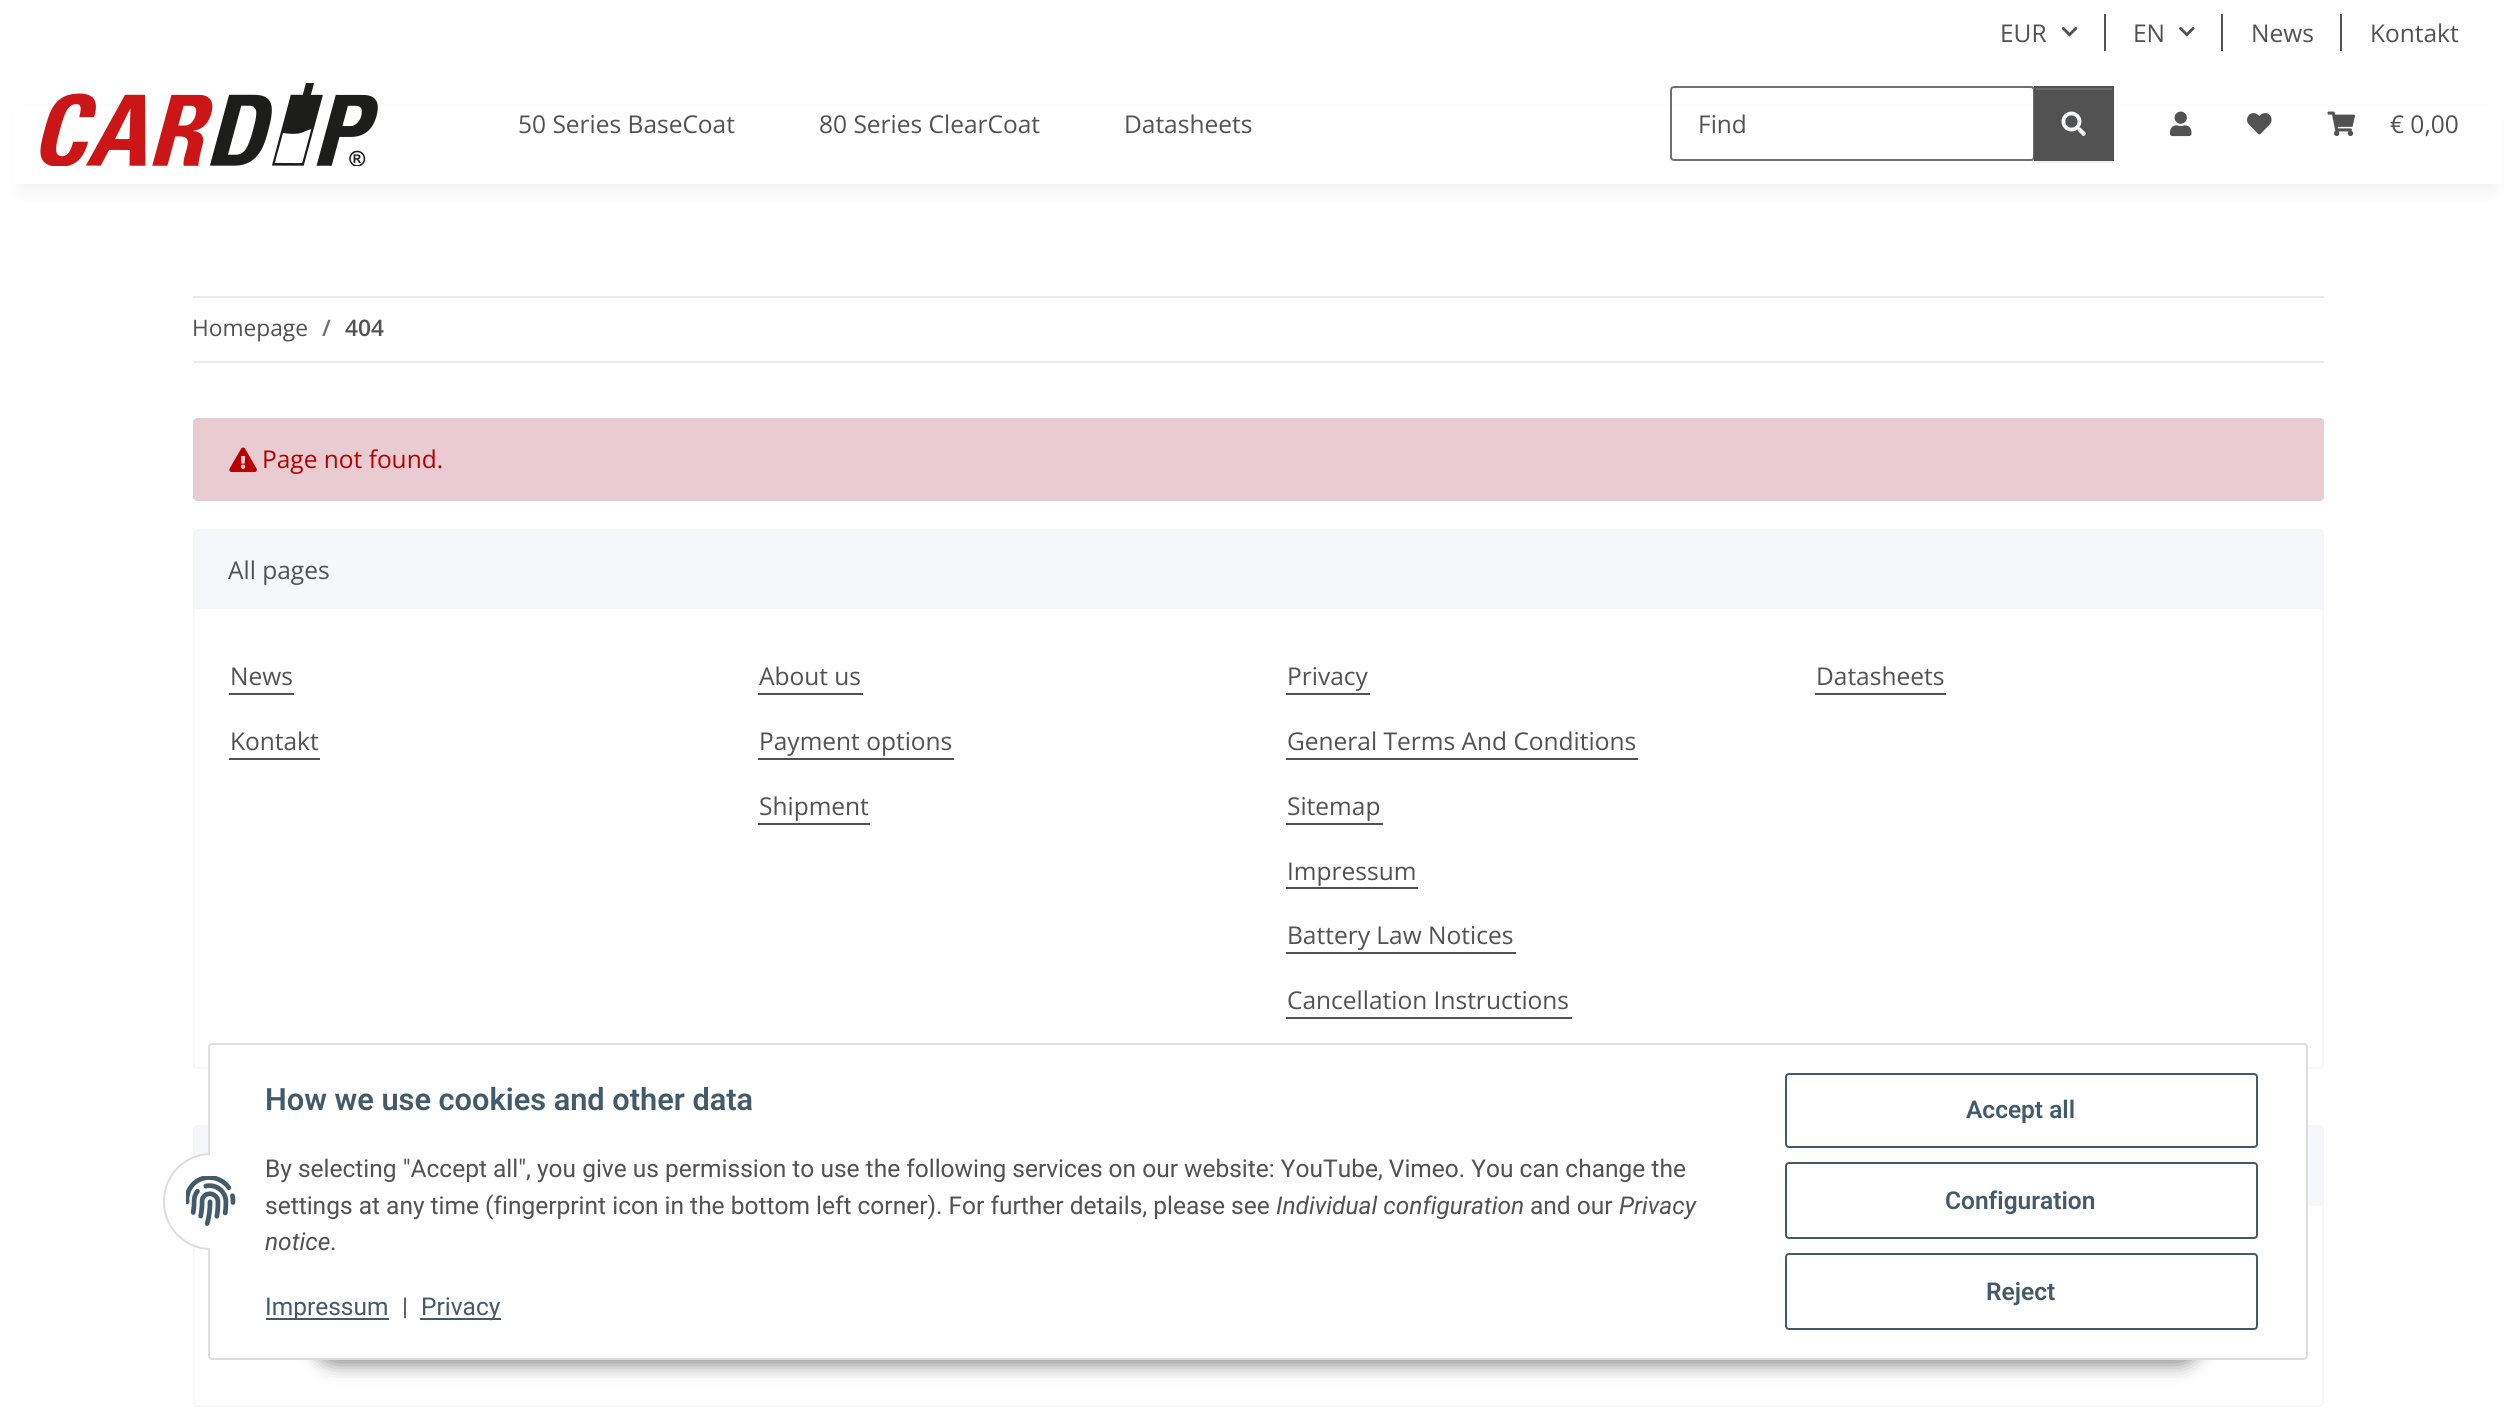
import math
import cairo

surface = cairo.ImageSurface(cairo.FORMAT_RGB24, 2514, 1415)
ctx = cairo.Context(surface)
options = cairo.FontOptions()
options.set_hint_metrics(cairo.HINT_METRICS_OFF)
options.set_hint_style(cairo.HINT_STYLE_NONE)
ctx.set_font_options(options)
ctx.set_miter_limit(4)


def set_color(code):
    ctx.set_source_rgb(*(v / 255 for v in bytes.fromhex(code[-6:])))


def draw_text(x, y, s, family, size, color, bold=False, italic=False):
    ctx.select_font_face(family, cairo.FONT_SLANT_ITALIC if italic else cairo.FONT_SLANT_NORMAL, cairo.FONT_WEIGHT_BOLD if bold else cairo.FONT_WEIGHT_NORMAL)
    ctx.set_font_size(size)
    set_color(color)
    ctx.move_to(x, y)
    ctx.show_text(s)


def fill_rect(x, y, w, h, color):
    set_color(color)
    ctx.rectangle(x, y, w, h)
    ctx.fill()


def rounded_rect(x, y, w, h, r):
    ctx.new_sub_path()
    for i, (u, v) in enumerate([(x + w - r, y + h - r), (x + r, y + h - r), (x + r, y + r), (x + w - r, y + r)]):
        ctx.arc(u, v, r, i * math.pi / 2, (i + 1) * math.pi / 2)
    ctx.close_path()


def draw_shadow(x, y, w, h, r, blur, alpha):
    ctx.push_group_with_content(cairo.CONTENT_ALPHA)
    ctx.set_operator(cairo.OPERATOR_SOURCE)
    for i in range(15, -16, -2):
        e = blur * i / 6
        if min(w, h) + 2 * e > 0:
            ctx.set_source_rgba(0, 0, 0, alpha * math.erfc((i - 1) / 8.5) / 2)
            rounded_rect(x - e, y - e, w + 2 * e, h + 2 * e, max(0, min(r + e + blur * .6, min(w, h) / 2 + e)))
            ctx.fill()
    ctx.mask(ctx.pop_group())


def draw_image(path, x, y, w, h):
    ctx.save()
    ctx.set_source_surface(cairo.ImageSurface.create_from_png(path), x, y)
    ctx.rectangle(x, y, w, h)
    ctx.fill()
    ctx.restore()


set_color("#ffffff")
ctx.paint()
draw_text(2000, 42, "EUR", "Open Sans", 24.5, "#525252")
draw_image("assets/img1.png", 2061, 26, 17, 11)
fill_rect(2104, 14, 2, 37, "#525252")
draw_text(2133, 42, "EN", "Open Sans", 24.5, "#525252")
draw_image("assets/img2.png", 2179, 26, 16, 11)
fill_rect(2221, 14, 2, 37, "#525252")
draw_text(2251, 42, "News", "Open Sans", 24.5, "#525252")
fill_rect(2340, 14, 2, 37, "#525252")
draw_text(2370, 42, "Kontakt", "Open Sans", 24.5, "#525252")
set_color("#000000")
draw_shadow(21, 114, 2473, 77, 0, 8, 0.06)
fill_rect(13, 106, 2489, 78, "#ffffff")
draw_image("assets/img3.png", 40, 83, 338, 83)
draw_text(518, 133, "50 Series BaseCoat", "Open Sans", 24.5, "#525252")
draw_text(819, 133, "80 Series ClearCoat", "Open Sans", 24.5, "#525252")
draw_text(1124, 133, "Datasheets", "Open Sans", 24.5, "#525252")
rounded_rect(1671, 87, 363, 73, 3)
set_color("#707070")
ctx.stroke()
draw_text(1698, 133, "Find", "Open Sans", 24.5, "#525252")
set_color("#000000")
draw_shadow(2034, 88, 80, 75, 0, 1, 0.07)
fill_rect(2036, 90, 76, 69, "#525252")
fill_rect(2035, 88, 77, 2, "#6c6c6c")
ctx.rectangle(2035, 87, 78, 73)
set_color("#525252")
ctx.stroke()
draw_image("assets/img4.png", 2061, 111, 25, 25)
draw_image("assets/img5.png", 2170, 111, 22, 26)
draw_image("assets/img6.png", 2247, 113, 25, 22)
draw_image("assets/img7.png", 2327, 111, 28, 25)
draw_text(2390, 133, "€ 0,00", "Open Sans", 24.5, "#525252")
fill_rect(193, 296, 2131, 2, "#ebebeb")
fill_rect(193, 361, 2131, 2, "#ebebeb")
draw_text(192, 336, "Homepage", "Open Sans", 22.75, "#525252")
draw_text(322, 336, "/", "Open Sans SemiBold", 22.75, "#707070")
draw_text(345, 336, "404", "Open Sans SemiBold", 22.75, "#525252")
set_color("#e8ccd2")
rounded_rect(194, 419, 2129, 81, 3)
ctx.fill_preserve()
ctx.stroke()
draw_image("assets/img8.png", 229, 447, 28, 26)
draw_text(262, 468, "Page not found.", "Open Sans", 24.5, "#b90000")
rounded_rect(194, 530, 2129, 538, 3)
set_color("#f5f7fa")
ctx.stroke()
ctx.new_path()
ctx.move_to(196, 530)
ctx.line_to(2320, 530)
ctx.curve_to(2321, 530, 2322, 531, 2322, 532)
ctx.line_to(2322, 609)
ctx.line_to(194, 609)
ctx.line_to(194, 532)
ctx.curve_to(194, 531, 195, 530, 196, 530)
ctx.close_path()
ctx.fill()
draw_text(228, 579, "All pages", "Open Sans", 24.5, "#525252")
draw_text(230, 685, "News", "Open Sans", 24.5, "#525252")
fill_rect(229, 693, 65, 2, "#525252")
draw_text(230, 750, "Kontakt", "Open Sans", 24.5, "#525252")
fill_rect(229, 758, 91, 2, "#525252")
draw_text(759, 685, "About us", "Open Sans", 24.5, "#525252")
fill_rect(758, 693, 105, 2, "#525252")
draw_text(759, 750, "Payment options", "Open Sans", 24.5, "#525252")
fill_rect(758, 758, 196, 2, "#525252")
draw_text(759, 815, "Shipment", "Open Sans", 24.5, "#525252")
fill_rect(758, 823, 112, 2, "#525252")
draw_text(1287, 685, "Privacy", "Open Sans", 24.5, "#525252")
fill_rect(1286, 693, 84, 2, "#525252")
draw_text(1287, 750, "General Terms And Conditions", "Open Sans", 24.5, "#525252")
fill_rect(1286, 758, 352, 2, "#525252")
draw_text(1287, 815, "Sitemap", "Open Sans", 24.5, "#525252")
fill_rect(1286, 823, 97, 2, "#525252")
draw_text(1287, 880, "Impressum", "Open Sans", 24.5, "#525252")
fill_rect(1286, 887, 132, 2, "#525252")
draw_text(1287, 944, "Battery Law Notices", "Open Sans", 24.5, "#525252")
fill_rect(1286, 952, 230, 2, "#525252")
draw_text(1287, 1009, "Cancellation Instructions", "Open Sans", 24.5, "#525252")
fill_rect(1286, 1017, 286, 2, "#525252")
draw_text(1816, 685, "Datasheets", "Open Sans", 24.5, "#525252")
fill_rect(1815, 693, 131, 2, "#525252")
rounded_rect(194, 1126, 2129, 280, 3)
set_color("#f5f7fa")
ctx.stroke()
ctx.new_path()
ctx.move_to(196, 1127)
ctx.line_to(2320, 1127)
ctx.curve_to(2321, 1127, 2322, 1128, 2322, 1129)
ctx.line_to(2322, 1206)
ctx.line_to(194, 1206)
ctx.line_to(194, 1129)
ctx.curve_to(194, 1128, 195, 1127, 196, 1127)
ctx.close_path()
ctx.fill()
set_color("#000000")
draw_shadow(313, 1309, 1889, 56, 28, 9, 0.45)
set_color("#ffffff")
rounded_rect(209, 1044, 2098, 315, 3)
ctx.fill_preserve()
set_color("#dddddd")
ctx.stroke()
set_color("#ffffff")
rounded_rect(164, 1154, 94, 95, 47)
ctx.fill_preserve()
set_color("#dddddd")
ctx.stroke()
fill_rect(210, 1153, 49, 97, "#ffffff")
draw_image("assets/img9.png", 186, 1176, 50, 50)
draw_text(265, 1110, "How we use cookies and other data", "Roboto SemiBold", 30.75, "#435a6b")
draw_text(265, 1177, "By selecting \"Accept all\", you give us permission to use the following services on our website: YouTube, Vimeo. You can change the", "Roboto", 24.5, "#525252")
draw_text(265, 1214, "settings at any time (fingerprint icon in the bottom left corner). For further details, please see", "Roboto", 24.5, "#525252")
draw_text(1276, 1214, "Individual configuration", "Roboto", 24.5, "#525252", italic=True)
draw_text(1530, 1214, "and our", "Roboto", 24.5, "#525252")
draw_text(1619, 1214, "Privacy", "Roboto", 24.5, "#525252", italic=True)
draw_text(265, 1250, "notice", "Roboto", 24.5, "#525252", italic=True)
draw_text(330, 1250, ".", "Roboto", 24.5, "#525252")
fill_rect(266, 1318, 123, 2, "#435a6b")
draw_text(265, 1315, "Impressum", "Roboto", 24.5, "#435a6b")
draw_text(402, 1315, "|", "Roboto", 24.5, "#525252")
fill_rect(420, 1318, 81, 2, "#435a6b")
draw_text(421, 1315, "Privacy", "Roboto", 24.5, "#435a6b")
rounded_rect(1786, 1074, 471, 73, 3)
ctx.stroke()
draw_text(1966, 1118, "Accept all", "Roboto SemiBold", 24.5, "#435a6b")
rounded_rect(1786, 1163, 471, 75, 3)
ctx.stroke()
draw_text(1945, 1209, "Configuration", "Roboto SemiBold", 24.5, "#435a6b")
rounded_rect(1786, 1254, 471, 75, 3)
ctx.stroke()
draw_text(1986, 1300, "Reject", "Roboto SemiBold", 24.5, "#435a6b")
surface.write_to_png("output.png")
